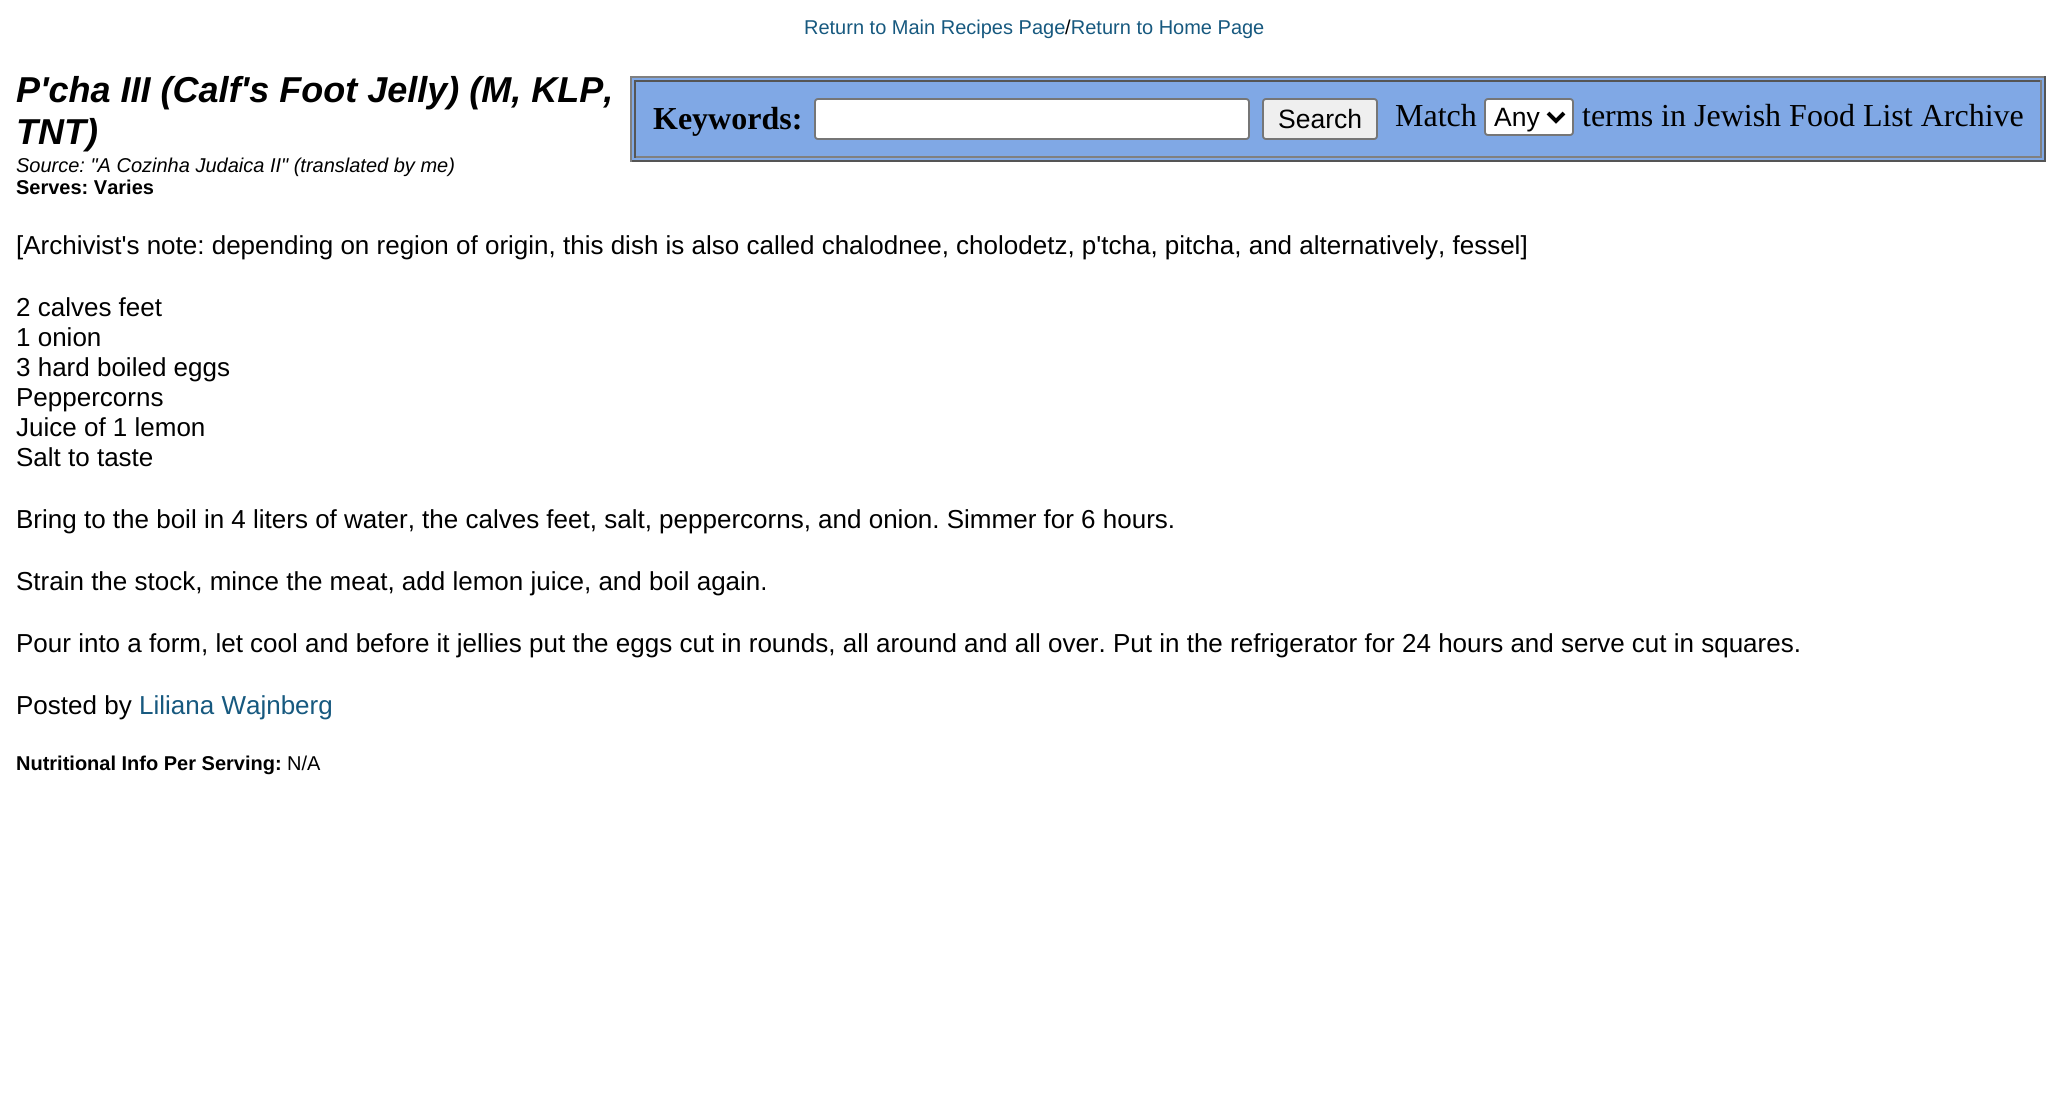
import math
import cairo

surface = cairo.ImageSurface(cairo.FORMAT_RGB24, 2067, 1103)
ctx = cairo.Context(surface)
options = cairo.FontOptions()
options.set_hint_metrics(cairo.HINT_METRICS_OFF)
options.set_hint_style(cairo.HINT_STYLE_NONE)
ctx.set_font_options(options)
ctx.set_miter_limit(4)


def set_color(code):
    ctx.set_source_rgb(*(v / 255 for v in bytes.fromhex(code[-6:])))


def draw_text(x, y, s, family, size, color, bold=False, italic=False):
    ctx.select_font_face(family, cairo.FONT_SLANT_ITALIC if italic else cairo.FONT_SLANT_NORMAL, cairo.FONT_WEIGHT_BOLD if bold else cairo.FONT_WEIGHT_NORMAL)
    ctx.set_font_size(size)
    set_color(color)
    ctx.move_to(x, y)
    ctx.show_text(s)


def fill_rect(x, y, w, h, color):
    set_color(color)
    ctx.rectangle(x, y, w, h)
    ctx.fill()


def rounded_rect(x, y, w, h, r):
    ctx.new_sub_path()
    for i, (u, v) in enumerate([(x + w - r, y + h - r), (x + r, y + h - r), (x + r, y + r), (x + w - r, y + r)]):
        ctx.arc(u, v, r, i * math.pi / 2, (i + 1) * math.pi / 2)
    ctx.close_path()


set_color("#ffffff")
ctx.paint()
draw_text(804, 34, "Return to Main Recipes Page Return to Home Page", "Liberation Sans", 20, "#17597f")
draw_text(1065, 34, "/", "Liberation Sans", 20, "#000000")
draw_text(16, 102, "P'cha III (Calf's Foot Jelly) (M, KLP,", "Liberation Sans", 36, "#000000", bold=True, italic=True)
draw_text(16, 144, "TNT)", "Liberation Sans", 36, "#000000", bold=True, italic=True)
fill_rect(632, 78, 1412, 82, "#80a8e5")
fill_rect(630, 76, 1416, 2, "#808080")
fill_rect(2044, 76, 2, 86, "#555555")
fill_rect(630, 160, 1416, 2, "#555555")
fill_rect(630, 76, 2, 86, "#808080")
fill_rect(634, 80, 1408, 2, "#555555")
fill_rect(2040, 80, 2, 78, "#808080")
fill_rect(634, 156, 1408, 2, "#808080")
fill_rect(634, 80, 2, 78, "#555555")
draw_text(653, 129, "Keywords:", "Liberation Serif", 32, "#000000", bold=True)
set_color("#ffffff")
rounded_rect(815, 99, 434, 40, 3)
ctx.fill_preserve()
set_color("#767676")
ctx.stroke()
set_color("#efefef")
rounded_rect(1263, 99, 114, 40, 3)
ctx.fill_preserve()
set_color("#767676")
ctx.stroke()
draw_text(1278, 128, "Search", "Liberation Sans", 26.5, "#000000")
draw_text(1395, 126, "Match", "Liberation Serif", 32, "#000000")
set_color("#ffffff")
rounded_rect(1485, 99, 88, 36, 3)
ctx.fill_preserve()
set_color("#767676")
ctx.stroke()
ctx.new_path()
ctx.move_to(1548, 113)
ctx.line_to(1556, 121)
ctx.line_to(1564, 113)
set_color("#000000")
ctx.set_line_width(4)
ctx.stroke()
draw_text(1494, 126, "Any", "Liberation Sans", 26.5, "#000000")
draw_text(1582, 126, "terms in Jewish Food List Archive", "Liberation Serif", 32, "#000000")
draw_text(16, 172, "Source: \"A Cozinha Judaica II\" (translated by me)", "Liberation Sans", 20, "#000000", italic=True)
draw_text(16, 194, "Serves: Varies", "Liberation Sans", 20, "#000000", bold=True)
draw_text(16, 254, "[Archivist's note: depending on region of origin, this dish is also called chalodnee, cholodetz, p'tcha, pitcha, and alternatively, fessel]", "Liberation Sans", 26, "#000000")
draw_text(16, 316, "2 calves feet", "Liberation Sans", 26, "#000000")
draw_text(16, 346, "1 onion", "Liberation Sans", 26, "#000000")
draw_text(16, 376, "3 hard boiled eggs", "Liberation Sans", 26, "#000000")
draw_text(16, 406, "Peppercorns", "Liberation Sans", 26, "#000000")
draw_text(16, 436, "Juice of 1 lemon", "Liberation Sans", 26, "#000000")
draw_text(16, 466, "Salt to taste", "Liberation Sans", 26, "#000000")
draw_text(16, 528, "Bring to the boil in 4 liters of water, the calves feet, salt, peppercorns, and onion. Simmer for 6 hours.", "Liberation Sans", 26, "#000000")
draw_text(16, 590, "Strain the stock, mince the meat, add lemon juice, and boil again.", "Liberation Sans", 26, "#000000")
draw_text(16, 652, "Pour into a form, let cool and before it jellies put the eggs cut in rounds, all around and all over. Put in the refrigerator for 24 hours and serve cut in squares.", "Liberation Sans", 26, "#000000")
draw_text(16, 714, "Posted by", "Liberation Sans", 26, "#000000")
draw_text(139, 714, "Liliana Wajnberg", "Liberation Sans", 26, "#17597f")
draw_text(16, 770, "Nutritional Info Per Serving:", "Liberation Sans", 20, "#000000", bold=True)
draw_text(287, 770, "N/A", "Liberation Sans", 20, "#000000")
surface.write_to_png("output.png")
